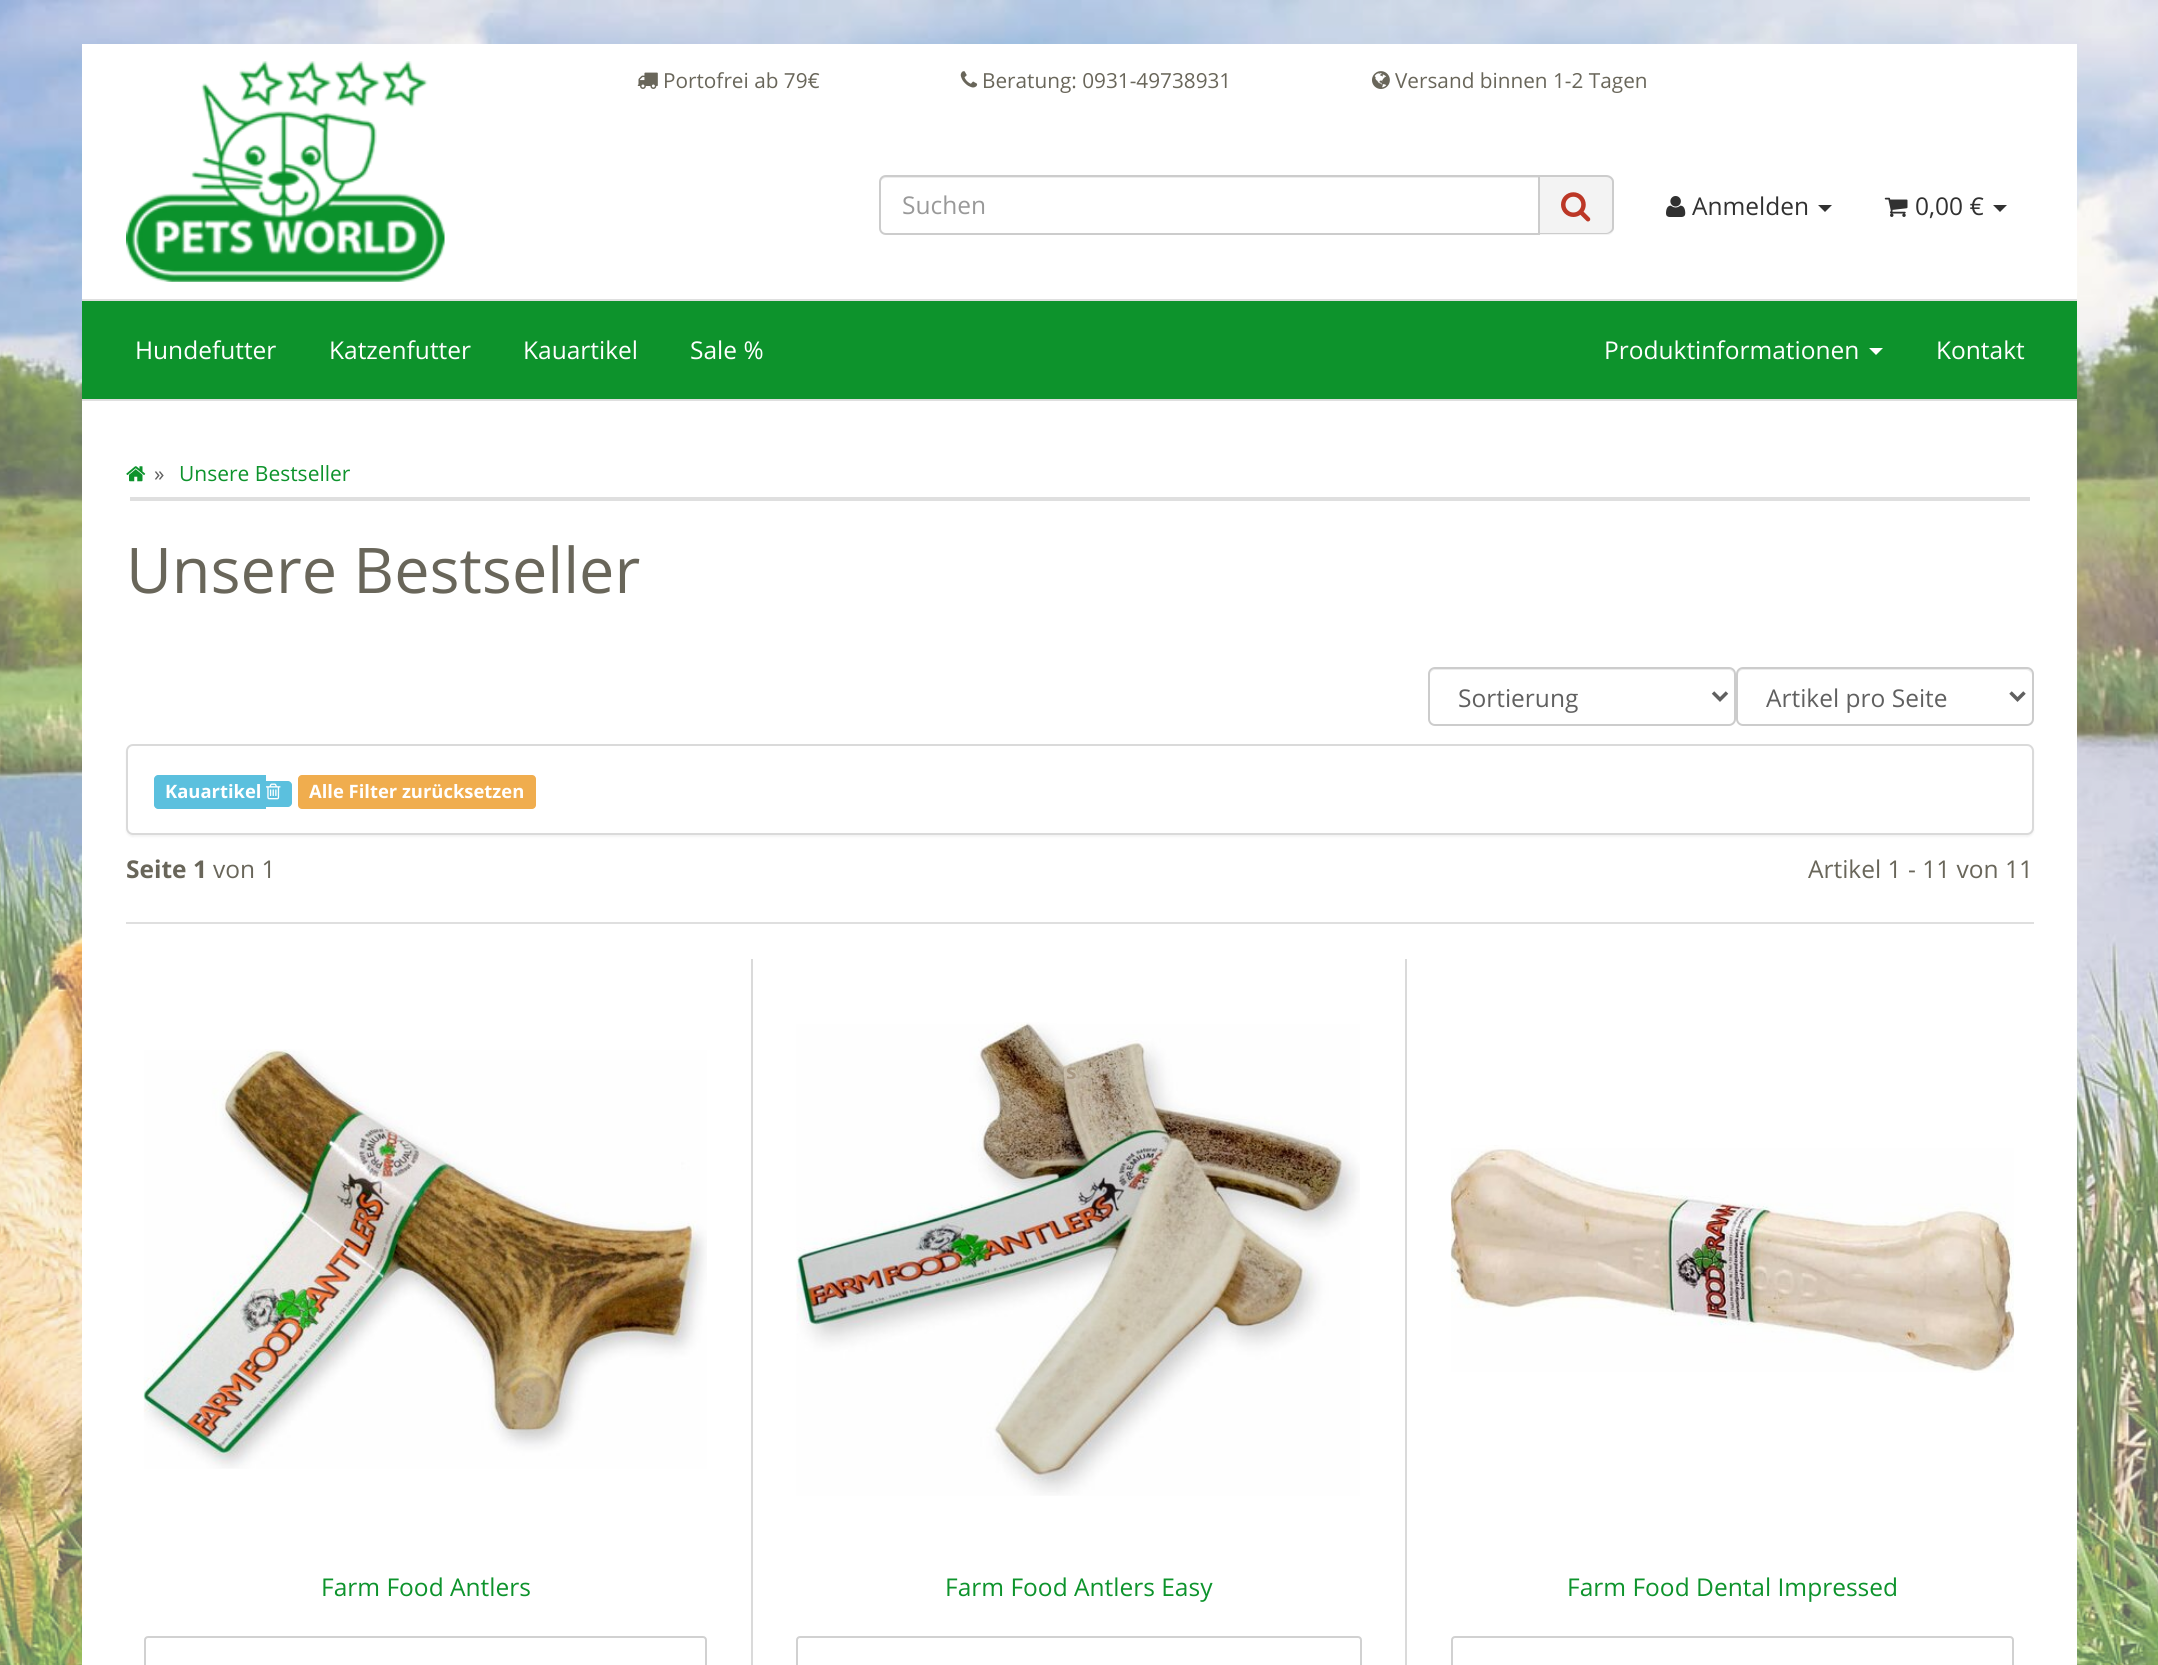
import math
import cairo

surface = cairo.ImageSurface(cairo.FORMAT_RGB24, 2158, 1665)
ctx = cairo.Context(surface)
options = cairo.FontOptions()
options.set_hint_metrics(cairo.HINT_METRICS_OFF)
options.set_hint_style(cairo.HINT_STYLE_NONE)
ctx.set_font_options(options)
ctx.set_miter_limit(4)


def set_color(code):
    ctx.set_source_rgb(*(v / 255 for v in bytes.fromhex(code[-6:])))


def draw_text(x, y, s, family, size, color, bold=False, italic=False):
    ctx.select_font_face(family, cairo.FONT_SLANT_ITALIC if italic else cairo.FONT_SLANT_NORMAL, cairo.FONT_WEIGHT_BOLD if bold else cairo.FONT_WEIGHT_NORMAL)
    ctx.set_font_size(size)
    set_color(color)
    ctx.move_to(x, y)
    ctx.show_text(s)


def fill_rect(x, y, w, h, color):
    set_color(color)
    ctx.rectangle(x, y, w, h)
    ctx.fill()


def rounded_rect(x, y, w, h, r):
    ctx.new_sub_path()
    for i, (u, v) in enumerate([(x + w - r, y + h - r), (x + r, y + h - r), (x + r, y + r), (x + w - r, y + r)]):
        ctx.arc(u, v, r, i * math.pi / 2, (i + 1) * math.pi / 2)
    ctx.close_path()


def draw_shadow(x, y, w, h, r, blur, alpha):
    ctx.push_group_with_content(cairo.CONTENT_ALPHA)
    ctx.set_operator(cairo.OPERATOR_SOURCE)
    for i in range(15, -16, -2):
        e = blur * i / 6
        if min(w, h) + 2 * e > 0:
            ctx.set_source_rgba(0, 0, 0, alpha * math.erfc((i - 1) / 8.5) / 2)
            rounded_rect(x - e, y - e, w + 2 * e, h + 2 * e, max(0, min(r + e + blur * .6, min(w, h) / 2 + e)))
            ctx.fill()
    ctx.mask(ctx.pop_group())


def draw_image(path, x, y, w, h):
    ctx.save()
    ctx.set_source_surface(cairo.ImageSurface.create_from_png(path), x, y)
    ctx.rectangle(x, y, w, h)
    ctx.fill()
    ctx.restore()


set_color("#f4f1e5")
ctx.paint()
draw_image("assets/img1.png", 0, 0, 2158, 1665)
fill_rect(82, 44, 1995, 255, "#ffffff")
draw_image("assets/img2.png", 637, 72, 21, 17)
draw_text(663, 88, "Portofrei ab 79€", "Open Sans", 20.75, "#69665a")
draw_image("assets/img3.png", 960, 71, 18, 17)
draw_text(982, 88, "Beratung: 0931-49738931", "Open Sans", 20.75, "#69665a")
draw_image("assets/img4.png", 1372, 71, 18, 18)
draw_text(1395, 88, "Versand binnen 1-2 Tagen", "Open Sans", 20.75, "#69665a")
draw_image("assets/img5.png", 126, 61, 319, 221)
set_color("#ececec")
ctx.new_path()
ctx.move_to(886, 178)
ctx.line_to(1538, 178)
ctx.line_to(1538, 177)
ctx.line_to(885, 177)
ctx.curve_to(882, 177, 880, 179, 880, 182)
ctx.line_to(880, 184)
ctx.curve_to(880, 181, 883, 178, 886, 178)
ctx.close_path()
ctx.fill()
ctx.new_path()
ctx.move_to(886, 176)
ctx.line_to(1539, 176)
ctx.line_to(1539, 234)
ctx.line_to(886, 234)
ctx.curve_to(882.5, 234, 880, 231.5, 880, 228)
ctx.line_to(880, 182)
ctx.curve_to(880, 178.5, 882.5, 176, 886, 176)
ctx.close_path()
set_color("#cccccc")
ctx.stroke()
draw_text(902, 214, "Suchen", "Open Sans", 24.5, "#999999")
set_color("#f3f3f3")
ctx.new_path()
ctx.move_to(1540, 175)
ctx.line_to(1607, 175)
ctx.curve_to(1611, 175, 1614, 178, 1614, 182)
ctx.line_to(1614, 228)
ctx.curve_to(1614, 232, 1611, 235, 1607, 235)
ctx.line_to(1540, 235)
ctx.close_path()
ctx.fill()
set_color("#cccccc")
ctx.set_fill_rule(cairo.FILL_RULE_EVEN_ODD)
ctx.new_path()
ctx.move_to(1540, 175)
ctx.line_to(1606, 175)
ctx.curve_to(1610, 175, 1614, 178, 1614, 182)
ctx.line_to(1614, 228)
ctx.curve_to(1614, 231, 1610, 234, 1606, 234)
ctx.line_to(1540, 234)
ctx.close_path()
ctx.move_to(1540, 177)
ctx.line_to(1606, 177)
ctx.curve_to(1609, 177, 1612, 179, 1612, 182)
ctx.line_to(1612, 228)
ctx.curve_to(1612, 230, 1609, 233, 1606, 233)
ctx.line_to(1540, 233)
ctx.close_path()
ctx.fill()
draw_image("assets/img6.png", 1561, 192, 30, 30)
draw_image("assets/img7.png", 1666, 196, 20, 21)
draw_text(1692, 215, "Anmelden", "Open Sans", 24.5, "#313131")
ctx.set_fill_rule(cairo.FILL_RULE_WINDING)
ctx.new_path()
ctx.move_to(1818, 205)
ctx.line_to(1832, 205)
ctx.line_to(1825, 212)
ctx.close_path()
ctx.fill()
draw_image("assets/img8.png", 1884, 197, 24, 20)
draw_text(1915, 215, "0,00 €", "Open Sans", 24.5, "#313131")
ctx.new_path()
ctx.move_to(1993, 205)
ctx.line_to(2007, 205)
ctx.line_to(2000, 212)
ctx.close_path()
ctx.fill()
fill_rect(82, 301, 1995, 98, "#0d932c")
fill_rect(82, 299, 1995, 2, "#dfdfdf")
fill_rect(82, 399, 1995, 2, "#dfdfdf")
draw_text(135, 359, "Hundefutter", "Open Sans", 24.5, "#ffffff")
draw_text(329, 359, "Katzenfutter", "Open Sans", 24.5, "#ffffff")
draw_text(523, 359, "Kauartikel", "Open Sans", 24.5, "#ffffff")
draw_text(690, 359, "Sale %", "Open Sans", 24.5, "#ffffff")
draw_text(1604, 359, "Produktinformationen", "Open Sans", 24.5, "#ffffff")
ctx.new_path()
ctx.move_to(1869, 348)
ctx.line_to(1883, 348)
ctx.line_to(1876, 355)
ctx.close_path()
ctx.fill()
draw_text(1936, 359, "Kontakt", "Open Sans", 24.5, "#ffffff")
fill_rect(82, 401, 1995, 1264, "#ffffff")
fill_rect(130, 497, 1900, 4, "#dfdfdf")
draw_image("assets/img9.png", 126, 466, 20, 16)
draw_text(154, 481, "»", "Open Sans", 21, "#606060")
draw_text(179, 481, "Unsere Bestseller", "Open Sans", 21, "#0d932c")
draw_text(126, 593, "Unsere Bestseller", "Open Sans", 63, "#69665a")
set_color("#ececec")
ctx.new_path()
ctx.move_to(1435, 670)
ctx.line_to(1729, 670)
ctx.curve_to(1732, 670, 1734, 673, 1734, 676)
ctx.curve_to(1734, 673, 1733, 669, 1729, 669)
ctx.line_to(1435, 669)
ctx.curve_to(1431, 669, 1430, 673, 1430, 676)
ctx.curve_to(1430, 673, 1432, 670, 1435, 670)
ctx.close_path()
ctx.fill()
rounded_rect(1429, 668, 306, 57, 6)
set_color("#cccccc")
ctx.stroke()
ctx.new_path()
ctx.move_to(1713, 692.5)
ctx.line_to(1720, 699.5)
ctx.line_to(1727, 692.5)
set_color("#606060")
ctx.set_line_width(3.5)
ctx.stroke()
draw_text(1458, 707, "Sortierung", "Open Sans", 24.5, "#606060")
set_color("#ececec")
ctx.new_path()
ctx.move_to(1743, 670)
ctx.line_to(2026, 670)
ctx.curve_to(2029, 670, 2032, 673, 2032, 676)
ctx.curve_to(2032, 673, 2031, 669, 2027, 669)
ctx.line_to(1742, 669)
ctx.curve_to(1738, 670, 1738, 673, 1738, 676)
ctx.curve_to(1738, 673, 1740, 670, 1743, 670)
ctx.close_path()
ctx.fill()
rounded_rect(1737, 668, 296, 57, 6)
set_color("#cccccc")
ctx.set_line_width(2)
ctx.stroke()
ctx.new_path()
ctx.move_to(2010.5, 692.5)
ctx.line_to(2017.5, 699.5)
ctx.line_to(2024.5, 692.5)
set_color("#606060")
ctx.set_line_width(3.5)
ctx.stroke()
draw_text(1766, 707, "Artikel pro Seite", "Open Sans", 24.5, "#606060")
set_color("#000000")
draw_shadow(126, 746, 1908, 91, 7, 1, 0.05)
set_color("#ffffff")
rounded_rect(127, 745, 1906, 89, 6)
ctx.fill_preserve()
set_color("#dadada")
ctx.set_line_width(2)
ctx.stroke()
set_color("#5bc0de")
ctx.new_path()
ctx.move_to(158, 775)
ctx.line_to(266, 775)
ctx.line_to(266, 809)
ctx.line_to(158, 809)
ctx.curve_to(156, 809, 154, 807, 154, 805)
ctx.line_to(154, 779)
ctx.curve_to(154, 777, 156, 775, 158, 775)
ctx.close_path()
ctx.fill()
ctx.new_path()
ctx.move_to(266, 781)
ctx.line_to(288, 781)
ctx.curve_to(290, 781, 292, 783, 292, 785)
ctx.line_to(292, 803)
ctx.curve_to(292, 805, 290, 807, 288, 807)
ctx.line_to(266, 807)
ctx.close_path()
ctx.fill()
draw_text(165, 798, "Kauartikel", "Open Sans", 18.4, "#ffffff", bold=True)
draw_image("assets/img10.png", 266, 783, 15, 17)
set_color("#f0ad4e")
rounded_rect(298, 775, 238, 34, 4)
ctx.fill()
draw_text(309, 798, "Alle Filter zurücksetzen", "Open Sans", 18.4, "#ffffff", bold=True)
draw_text(126, 878, "Seite 1", "Open Sans", 24.5, "#69665a", bold=True)
draw_text(213, 878, "von 1", "Open Sans", 24.5, "#69665a")
draw_text(1808, 878, "Artikel 1 - 11 von 11", "Open Sans", 24.5, "#69665a")
fill_rect(126, 922, 1908, 2, "#dfdfdf")
fill_rect(751, 959, 2, 706, "#dadada")
draw_image("assets/img11.png", 143, 1049, 564, 420)
draw_text(321, 1596, "Farm Food Antlers", "Open Sans", 24.5, "#0d932c")
rounded_rect(145, 1637, 561, 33, 3)
set_color("#d1d1d1")
ctx.stroke()
fill_rect(1405, 959, 2, 706, "#dadada")
draw_image("assets/img12.png", 796, 1022, 564, 474)
draw_text(1066, 1079, "s", "Open Sans", 21, "#a89882", bold=True)
draw_text(945, 1596, "Farm Food Antlers Easy", "Open Sans", 24.5, "#0d932c")
rounded_rect(797, 1637, 564, 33, 3)
set_color("#d1d1d1")
ctx.stroke()
draw_image("assets/img13.png", 1450, 1145, 565, 228)
draw_text(1567, 1596, "Farm Food Dental Impressed", "Open Sans", 24.5, "#0d932c")
rounded_rect(1452, 1637, 561, 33, 3)
set_color("#d1d1d1")
ctx.stroke()
surface.write_to_png("output.png")
